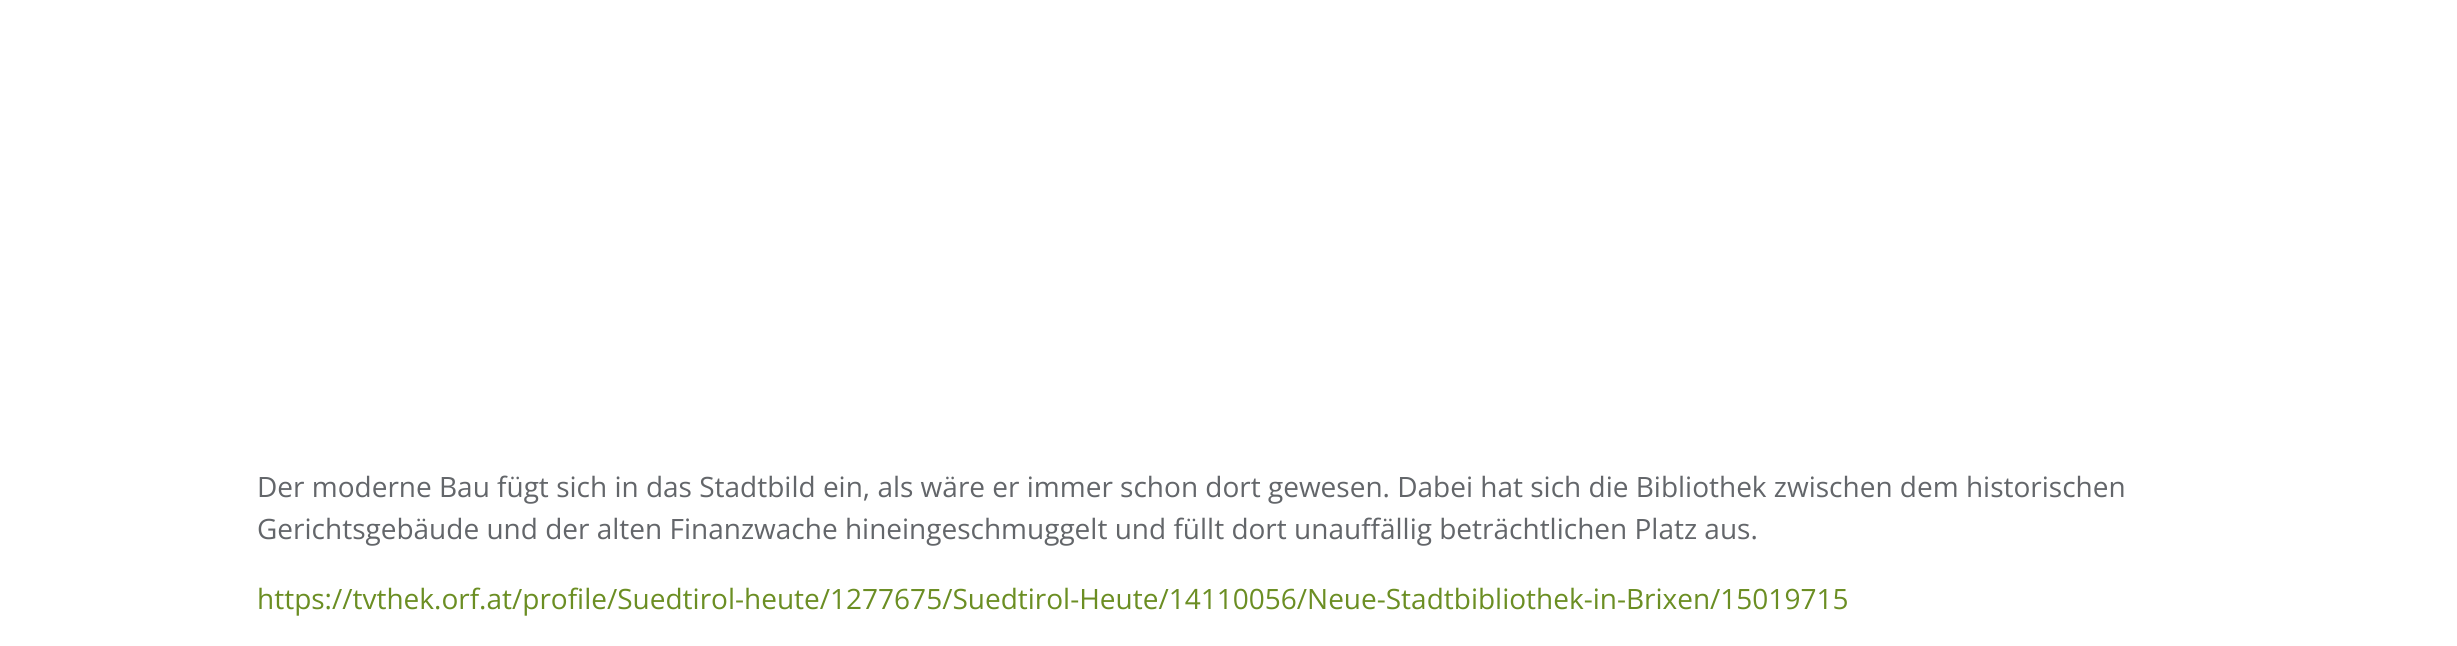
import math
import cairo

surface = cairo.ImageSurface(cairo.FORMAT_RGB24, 2457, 646)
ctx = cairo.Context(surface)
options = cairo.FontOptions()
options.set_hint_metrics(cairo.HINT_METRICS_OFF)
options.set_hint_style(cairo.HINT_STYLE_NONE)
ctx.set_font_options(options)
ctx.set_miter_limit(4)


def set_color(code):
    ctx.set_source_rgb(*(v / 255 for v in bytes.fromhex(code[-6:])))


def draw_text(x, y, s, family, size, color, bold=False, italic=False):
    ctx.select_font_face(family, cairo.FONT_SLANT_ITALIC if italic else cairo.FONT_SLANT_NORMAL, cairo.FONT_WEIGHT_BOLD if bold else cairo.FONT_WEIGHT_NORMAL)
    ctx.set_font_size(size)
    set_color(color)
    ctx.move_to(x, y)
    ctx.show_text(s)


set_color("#ffffff")
ctx.paint()
draw_text(257, 497, "Der moderne Bau fügt sich in das Stadtbild ein, als wäre er immer schon dort gewesen. Dabei hat sich die Bibliothek zwischen dem historischen", "Open Sans", 28, "#63666a")
draw_text(257, 539, "Gerichtsgebäude und der alten Finanzwache hineingeschmuggelt und füllt dort unauffällig beträchtlichen Platz aus.", "Open Sans", 28, "#63666a")
draw_text(257, 609, "https://tvthek.orf.at/profile/Suedtirol-heute/1277675/Suedtirol-Heute/14110056/Neue-Stadtbibliothek-in-Brixen/15019715", "Open Sans", 28, "#6b8e23")
surface.write_to_png("output.png")
